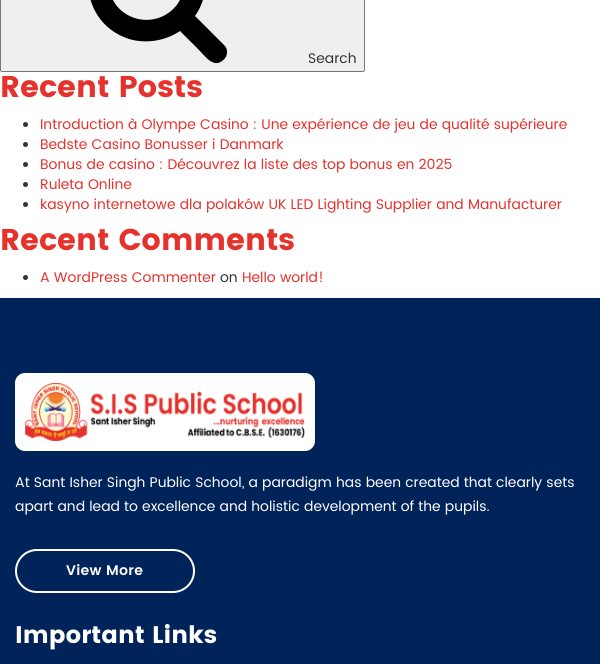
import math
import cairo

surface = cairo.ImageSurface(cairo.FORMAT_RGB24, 600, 664)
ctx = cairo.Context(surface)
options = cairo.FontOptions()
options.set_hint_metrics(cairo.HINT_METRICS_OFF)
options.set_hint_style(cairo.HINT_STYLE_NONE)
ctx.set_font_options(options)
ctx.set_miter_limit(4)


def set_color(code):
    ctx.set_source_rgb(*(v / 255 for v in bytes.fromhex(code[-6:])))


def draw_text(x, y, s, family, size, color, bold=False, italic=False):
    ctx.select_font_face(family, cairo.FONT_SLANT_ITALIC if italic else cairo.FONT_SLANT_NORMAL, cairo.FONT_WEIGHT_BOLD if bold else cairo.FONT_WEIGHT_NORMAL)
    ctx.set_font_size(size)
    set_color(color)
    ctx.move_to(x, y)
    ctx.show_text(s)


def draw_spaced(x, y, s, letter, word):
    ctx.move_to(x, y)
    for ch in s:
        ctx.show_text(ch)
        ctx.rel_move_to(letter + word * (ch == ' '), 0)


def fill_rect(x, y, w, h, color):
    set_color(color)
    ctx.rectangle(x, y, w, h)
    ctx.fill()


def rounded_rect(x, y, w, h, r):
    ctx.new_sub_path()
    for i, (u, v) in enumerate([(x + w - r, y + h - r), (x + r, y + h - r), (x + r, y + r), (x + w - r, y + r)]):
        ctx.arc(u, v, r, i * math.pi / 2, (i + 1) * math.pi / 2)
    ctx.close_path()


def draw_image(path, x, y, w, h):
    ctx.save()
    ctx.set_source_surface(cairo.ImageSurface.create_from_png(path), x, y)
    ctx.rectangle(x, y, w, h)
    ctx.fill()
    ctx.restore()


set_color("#ffffff")
ctx.paint()
set_color("#efefef")
rounded_rect(0.5, -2.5, 364, 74, 1.5)
ctx.fill_preserve()
set_color("#767676")
ctx.set_line_width(1)
ctx.stroke()
set_color("#000000")
ctx.new_path()
ctx.move_to(184, -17)
ctx.curve_to(184, -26, 181, -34, 176, -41)
ctx.curve_to(153, -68, 109, -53, 109, -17)
ctx.curve_to(109, 18, 153, 33, 176, 6)
ctx.curve_to(181, 0, 184, -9, 184, -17)
ctx.close_path()
ctx.move_to(227, 52)
ctx.curve_to(227, 56, 225, 59, 222, 61)
ctx.curve_to(213, 68, 205, 56, 199, 50)
ctx.line_to(180, 31)
ctx.curve_to(165, 41, 146, 44, 129, 39)
ctx.curve_to(73, 21, 75, -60, 132, -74)
ctx.curve_to(145, -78, 160, -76, 172, -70)
ctx.curve_to(204, -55, 216, -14, 195, 16)
ctx.line_to(224, 45)
ctx.curve_to(226, 47, 227, 49, 227, 52)
ctx.close_path()
ctx.fill()
draw_text(308, 63, "Search", "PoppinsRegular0", 14, "#333333")
draw_text(0, 97, "Recent Posts", "Poppins", 30, "#e5322c", bold=True)
set_color("#333333")
ctx.new_path()
ctx.arc(25.5, 124.5, 2.5, 0, 2 * math.pi)
ctx.fill()
draw_text(40, 129, "Introduction à Olympe Casino : Une expérience de jeu de qualité supérieure", "PoppinsRegular0", 14, "#e5322c")
set_color("#333333")
ctx.new_path()
ctx.arc(25.5, 144.5, 2.5, 0, 2 * math.pi)
ctx.fill()
draw_text(40, 149, "Bedste Casino Bonusser i Danmark", "PoppinsRegular0", 14, "#e5322c")
set_color("#333333")
ctx.new_path()
ctx.arc(25.5, 164.5, 2.5, 0, 2 * math.pi)
ctx.fill()
draw_text(40, 169, "Bonus de casino : Découvrez la liste des top bonus en 2025", "PoppinsRegular0", 14, "#e5322c")
set_color("#333333")
ctx.new_path()
ctx.arc(25.5, 184.5, 2.5, 0, 2 * math.pi)
ctx.fill()
draw_text(40, 189, "Ruleta Online", "PoppinsRegular0", 14, "#e5322c")
set_color("#333333")
ctx.new_path()
ctx.arc(25.5, 204.5, 2.5, 0, 2 * math.pi)
ctx.fill()
draw_text(40, 209, "kasyno internetowe dla polaków UK LED Lighting Supplier and Manufacturer", "PoppinsRegular0", 14, "#e5322c")
draw_text(0, 250, "Recent Comments", "Poppins", 30, "#e5322c", bold=True)
set_color("#333333")
ctx.new_path()
ctx.arc(25.5, 277.5, 2.5, 0, 2 * math.pi)
ctx.fill()
draw_text(40, 282, "A WordPress Commenter", "PoppinsRegular0", 14, "#e5322c")
draw_text(220, 282, "on", "PoppinsRegular0", 14, "#333333")
draw_text(242, 282, "Hello world!", "PoppinsRegular0", 14, "#e5322c")
fill_rect(0, 298, 600, 366, "#00235a")
set_color("#ffffff")
rounded_rect(15, 373, 300, 78, 10)
ctx.fill()
draw_image("assets/img1.png", 25, 383, 280, 58)
draw_text(15, 487, "At Sant Isher Singh Public School, a paradigm has been created that clearly sets", "PoppinsRegular0", 14, "#ffffff")
draw_text(15, 511, "apart and lead to excellence and holistic development of the pupils.", "PoppinsRegular0", 14, "#ffffff")
rounded_rect(16, 550, 178, 42, 21)
ctx.set_line_width(2)
ctx.stroke()
ctx.select_font_face("Poppins SemiBold")
draw_spaced(66, 575, "View More", 0.25, 0)
draw_text(15, 643, "Important Links", "Poppins", 24, "#ffffff", bold=True)
surface.write_to_png("output.png")
